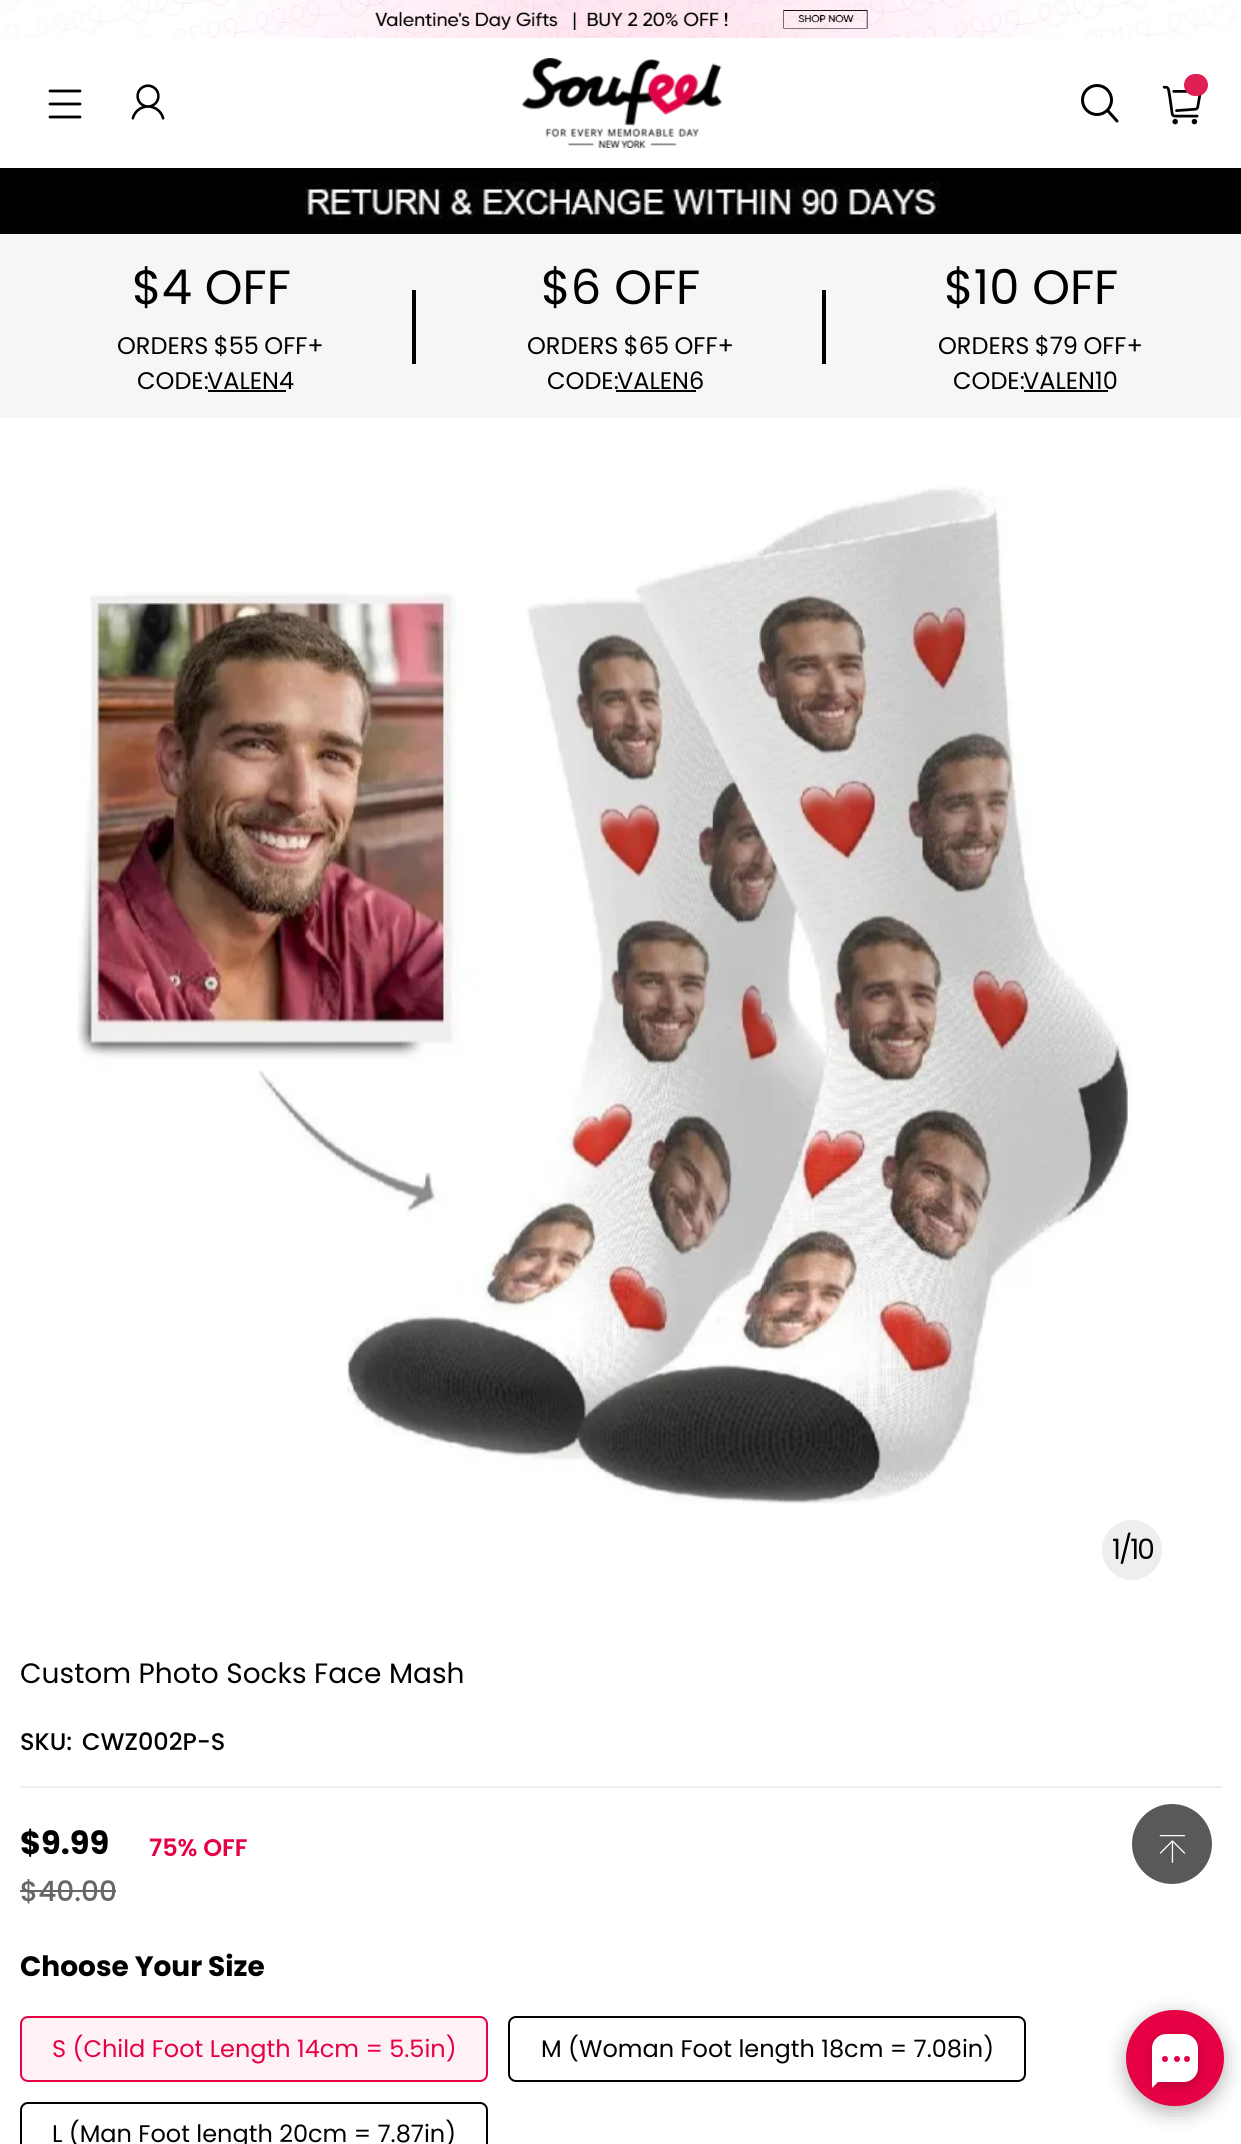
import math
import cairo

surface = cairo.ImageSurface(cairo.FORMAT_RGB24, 1241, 2144)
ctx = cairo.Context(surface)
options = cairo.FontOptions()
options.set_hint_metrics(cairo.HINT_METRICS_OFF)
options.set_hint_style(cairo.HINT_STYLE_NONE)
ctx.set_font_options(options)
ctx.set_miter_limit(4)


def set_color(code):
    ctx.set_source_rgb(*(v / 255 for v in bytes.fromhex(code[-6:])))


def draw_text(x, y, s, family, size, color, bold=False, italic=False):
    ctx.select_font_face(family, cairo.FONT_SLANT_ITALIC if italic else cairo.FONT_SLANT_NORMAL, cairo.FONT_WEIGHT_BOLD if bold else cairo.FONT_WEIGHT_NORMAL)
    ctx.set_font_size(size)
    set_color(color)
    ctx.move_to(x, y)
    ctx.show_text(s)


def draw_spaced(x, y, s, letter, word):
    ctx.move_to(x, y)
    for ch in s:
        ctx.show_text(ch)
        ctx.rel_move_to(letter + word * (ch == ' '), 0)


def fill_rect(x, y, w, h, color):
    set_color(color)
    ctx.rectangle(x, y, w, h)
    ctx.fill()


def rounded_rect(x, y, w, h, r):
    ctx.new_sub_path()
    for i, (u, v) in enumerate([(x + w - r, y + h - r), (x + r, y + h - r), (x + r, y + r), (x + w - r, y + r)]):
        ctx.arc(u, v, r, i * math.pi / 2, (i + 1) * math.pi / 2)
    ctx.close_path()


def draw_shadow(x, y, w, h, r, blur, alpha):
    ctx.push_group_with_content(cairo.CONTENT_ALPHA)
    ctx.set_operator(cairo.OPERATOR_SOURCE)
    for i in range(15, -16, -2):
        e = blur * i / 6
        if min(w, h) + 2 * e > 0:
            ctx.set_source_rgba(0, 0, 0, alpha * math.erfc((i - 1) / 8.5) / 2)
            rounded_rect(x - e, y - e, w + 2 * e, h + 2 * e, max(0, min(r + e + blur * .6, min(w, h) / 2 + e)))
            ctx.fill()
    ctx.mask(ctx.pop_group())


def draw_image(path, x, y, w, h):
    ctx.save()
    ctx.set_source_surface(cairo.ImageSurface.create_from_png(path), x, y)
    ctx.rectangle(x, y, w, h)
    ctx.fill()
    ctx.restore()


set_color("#ffffff")
ctx.paint()
draw_image("assets/img1.png", 0, 0, 1241, 38)
ctx.new_path()
ctx.move_to(50, 91)
ctx.line_to(80, 91)
ctx.move_to(50, 104)
ctx.line_to(80, 104)
ctx.move_to(50, 117)
ctx.line_to(80, 117)
set_color("#000000")
ctx.set_line_width(2.8)
ctx.set_line_cap(cairo.LINE_CAP_ROUND)
ctx.stroke()
draw_image("assets/img2.png", 131, 84, 34, 36)
draw_image("assets/img3.png", 521, 58, 201, 90)
ctx.arc(1097, 100, 14.5, 0, 2 * math.pi)
ctx.set_line_width(3)
ctx.set_line_cap(cairo.LINE_CAP_BUTT)
ctx.stroke()
ctx.new_path()
ctx.move_to(1108, 111)
ctx.line_to(1117, 121)
ctx.set_line_cap(cairo.LINE_CAP_ROUND)
ctx.stroke()
draw_image("assets/img4.png", 1162, 85, 40, 40)
set_color("#e02054")
rounded_rect(1184, 74, 24, 22, 11)
ctx.fill()
set_color("#595959")
ctx.arc(1172, 1844, 40, 0, 2 * math.pi)
ctx.fill()
draw_image("assets/img5.png", 1159, 1835, 27, 28)
draw_image("assets/img6.png", 0, 168, 1241, 66)
fill_rect(0, 234, 1241, 184, "#f6f6f6")
draw_text(132, 304, "$4 OFF", "Poppins", 48, "#000000")
fill_rect(412, 290, 4, 74, "#000000")
ctx.set_font_size(24)
draw_spaced(117, 354, "ORDERS $55 OFF+", 0, -1)
draw_text(137, 389, "CODE:", "Poppins", 24, "#000000")
draw_text(207, 389, "VALEN4", "Poppins", 24, "#000000")
fill_rect(208, 390, 78, 2, "#000000")
draw_text(541, 304, "$6 OFF", "Poppins", 48, "#000000")
fill_rect(822, 290, 4, 74, "#000000")
ctx.set_font_size(24)
draw_spaced(527, 354, "ORDERS $65 OFF+", 0, -1)
draw_text(547, 389, "CODE:", "Poppins", 24, "#000000")
draw_text(617, 389, "VALEN6", "Poppins", 24, "#000000")
fill_rect(616, 390, 80, 2, "#000000")
draw_text(944, 304, "$10 OFF", "Poppins", 48, "#000000")
ctx.set_font_size(24)
draw_spaced(938, 354, "ORDERS $79 OFF+", 0, -1)
draw_text(953, 389, "CODE:", "Poppins", 24, "#000000")
draw_text(1023, 389, "VALEN10", "Poppins", 24, "#000000")
fill_rect(1024, 390, 84, 2, "#000000")
draw_image("assets/img7.png", 76, 486, 1056, 1018)
set_color("#eeeeee")
ctx.arc(1132, 1550, 30, 0, 2 * math.pi)
ctx.fill()
ctx.set_font_size(28)
set_color("#000000")
draw_spaced(1112, 1559, "1/10", -2, 0)
draw_text(20, 1683, "Custom Photo Socks Face Mash", "Poppins", 28, "#000000")
fill_rect(20, 1786, 1202, 2, "#eeeeee")
draw_text(20, 1750, "SKU:", "Poppins Medium", 24, "#000000")
draw_text(82, 1750, "CWZ002P-S", "Poppins Medium", 24, "#000000")
draw_text(20, 1854, "$9.99", "Poppins", 32, "#000000", bold=True)
draw_text(20, 1901, "$40.00", "Poppins Medium", 28, "#666666")
fill_rect(20, 1890, 96, 2, "#666666")
draw_text(149, 1856, "75% OFF", "Poppins SemiBold", 24, "#e60044")
draw_text(20, 1976, "Choose Your Size", "Poppins", 28, "#000000", bold=True)
set_color("#fef2f6")
rounded_rect(21, 2017, 466, 64, 7)
ctx.fill_preserve()
set_color("#e60044")
ctx.set_line_width(2)
ctx.set_line_cap(cairo.LINE_CAP_BUTT)
ctx.stroke()
draw_text(52, 2057, "S (Child Foot Length 14cm = 5.5in)", "Poppins", 24, "#e60044")
rounded_rect(509, 2017, 516, 64, 7)
set_color("#000000")
ctx.stroke()
draw_text(541, 2057, "M (Woman Foot length 18cm = 7.08in)", "Poppins", 24, "#000000")
rounded_rect(21, 2103, 466, 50, 7)
ctx.stroke()
draw_text(52, 2142, "L (Man Foot length 20cm = 7.87in)", "Poppins", 24, "#000000")
set_color("#000000")
draw_shadow(1126, 2016, 98, 96, 48, 10, 0.3)
set_color("#e60044")
rounded_rect(1126, 2010, 98, 96, 48)
ctx.fill()
set_color("#000000")
draw_shadow(1152, 2038, 46, 48, 14, 5, 0.2)
set_color("#ffffff")
ctx.new_path()
ctx.move_to(1166, 2034)
ctx.line_to(1184, 2034)
ctx.curve_to(1191.5, 2034, 1198, 2040.5, 1198, 2048)
ctx.line_to(1198, 2068)
ctx.curve_to(1198, 2075.5, 1191.5, 2082, 1184, 2082)
ctx.line_to(1152, 2082)
ctx.line_to(1152, 2048)
ctx.curve_to(1152, 2040.5, 1158.5, 2034, 1166, 2034)
ctx.close_path()
ctx.fill()
set_color("#e60044")
ctx.arc(1165, 2059, 3, 0, 2 * math.pi)
ctx.fill()
ctx.arc(1177, 2059, 3, 0, 2 * math.pi)
ctx.fill()
ctx.arc(1187, 2059, 3, 0, 2 * math.pi)
ctx.fill()
set_color("#ffffff")
ctx.new_path()
ctx.move_to(1152, 2088)
ctx.line_to(1152, 2074)
ctx.line_to(1170.5, 2074)
ctx.line_to(1170.5, 2069.5)
ctx.close_path()
ctx.fill()
surface.write_to_png("output.png")
